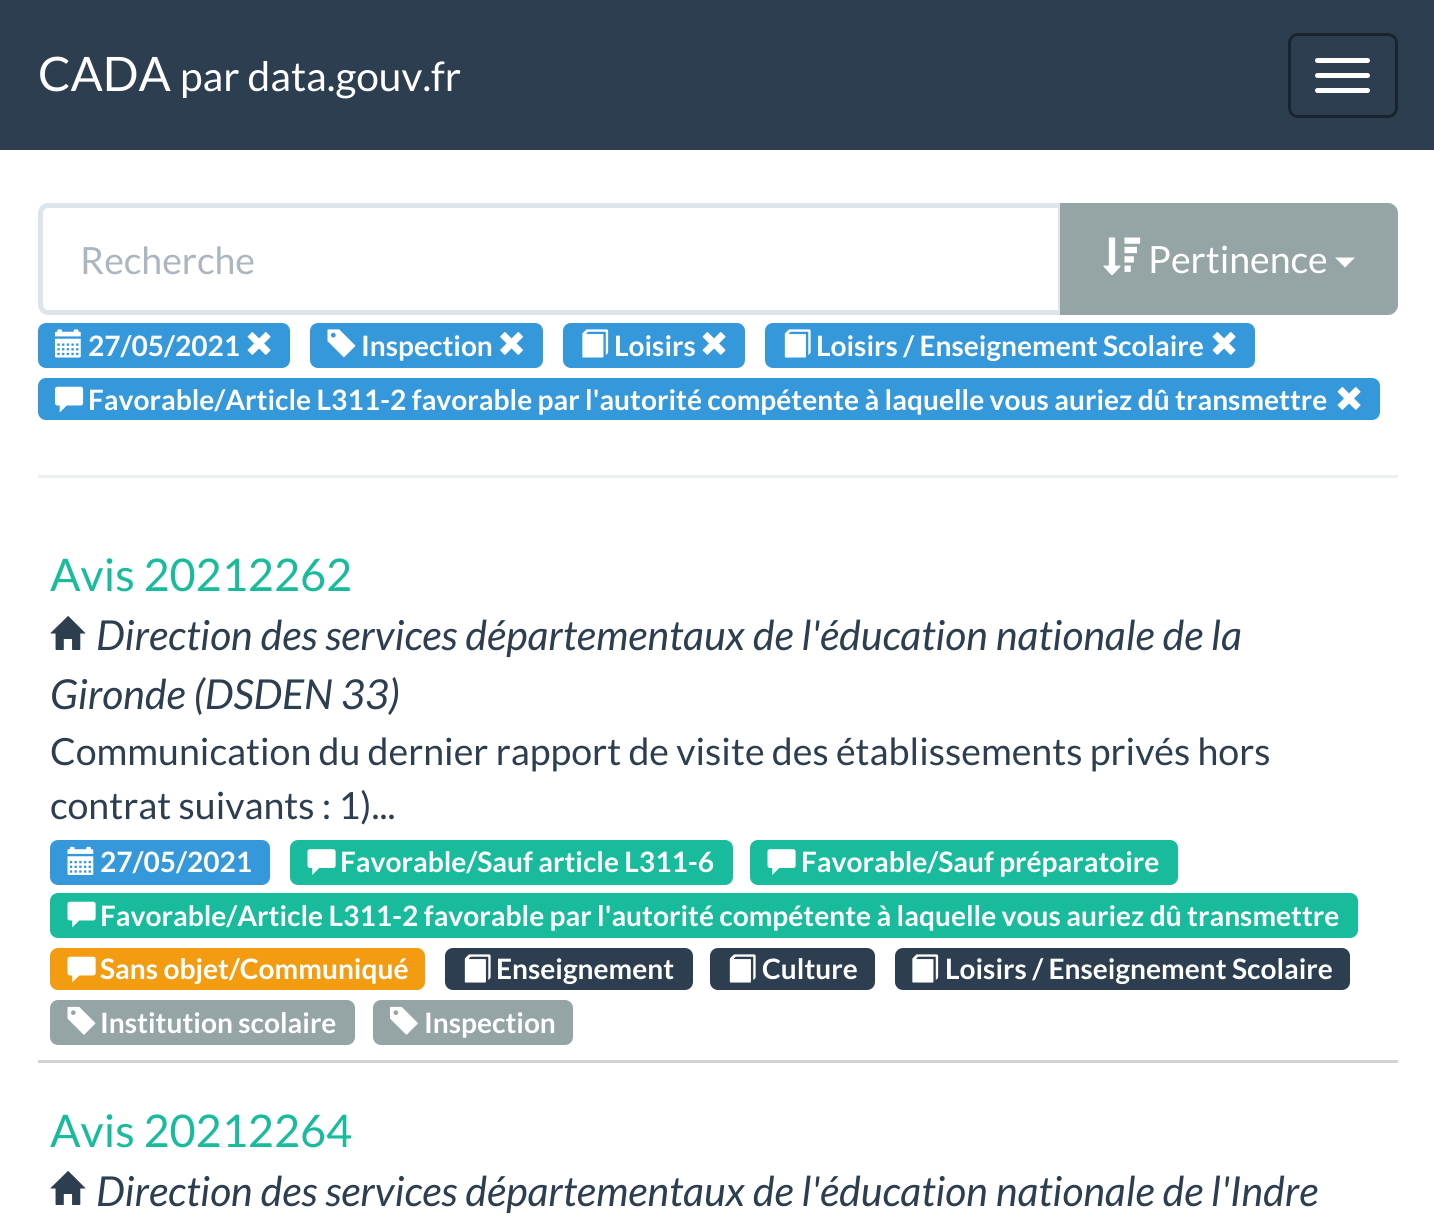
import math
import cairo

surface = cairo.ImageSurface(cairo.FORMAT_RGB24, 1434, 1216)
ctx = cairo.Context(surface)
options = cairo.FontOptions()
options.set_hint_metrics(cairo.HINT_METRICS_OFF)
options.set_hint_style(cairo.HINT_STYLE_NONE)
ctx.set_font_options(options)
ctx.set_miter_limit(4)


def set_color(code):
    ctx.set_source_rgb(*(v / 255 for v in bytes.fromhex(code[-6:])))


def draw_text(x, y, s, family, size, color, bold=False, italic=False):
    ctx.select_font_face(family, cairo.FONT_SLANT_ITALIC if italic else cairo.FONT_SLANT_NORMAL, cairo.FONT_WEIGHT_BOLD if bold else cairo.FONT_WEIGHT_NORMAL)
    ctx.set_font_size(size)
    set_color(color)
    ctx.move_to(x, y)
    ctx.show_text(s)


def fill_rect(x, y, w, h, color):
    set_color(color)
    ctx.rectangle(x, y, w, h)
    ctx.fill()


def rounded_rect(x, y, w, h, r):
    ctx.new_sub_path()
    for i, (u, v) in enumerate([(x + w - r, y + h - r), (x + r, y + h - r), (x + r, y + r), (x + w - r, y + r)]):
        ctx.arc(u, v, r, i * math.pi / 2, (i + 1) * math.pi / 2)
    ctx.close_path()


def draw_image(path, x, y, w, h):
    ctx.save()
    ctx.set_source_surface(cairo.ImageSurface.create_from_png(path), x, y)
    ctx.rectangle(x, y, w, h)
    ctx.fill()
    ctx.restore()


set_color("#ffffff")
ctx.paint()
fill_rect(0, 0, 1434, 150, "#2c3e50")
draw_text(38, 91, "CADA", "Lato", 47.5, "#ffffff")
draw_text(180, 91, "par data.gouv.fr", "Lato", 40.75, "#ffffff")
rounded_rect(1289.5, 34.5, 107, 82, 8.5)
set_color("#1a242f")
ctx.set_line_width(3)
ctx.stroke()
set_color("#ffffff")
rounded_rect(1315, 58, 55, 5, 2.5)
ctx.fill()
rounded_rect(1315, 73, 55, 5, 2.5)
ctx.fill()
rounded_rect(1315, 88, 55, 5, 2.5)
ctx.fill()
ctx.new_path()
ctx.move_to(48, 205.5)
ctx.line_to(1060.5, 205.5)
ctx.line_to(1060.5, 312.5)
ctx.line_to(48, 312.5)
ctx.curve_to(44, 312.5, 40.5, 309, 40.5, 305)
ctx.line_to(40.5, 213)
ctx.curve_to(40.5, 209, 44, 205.5, 48, 205.5)
ctx.close_path()
set_color("#dce4ec")
ctx.set_line_width(5)
ctx.stroke()
draw_text(80, 274, "Recherche", "Lato", 37.5, "#acb6c0")
set_color("#95a5a6")
ctx.new_path()
ctx.move_to(1062.5, 205.5)
ctx.line_to(1388, 205.5)
ctx.curve_to(1392, 205.5, 1395.5, 209, 1395.5, 213)
ctx.line_to(1395.5, 305)
ctx.curve_to(1395.5, 309, 1392, 312.5, 1388, 312.5)
ctx.line_to(1062.5, 312.5)
ctx.close_path()
ctx.fill_preserve()
ctx.stroke()
draw_image("assets/img1.png", 1103, 237, 38, 38)
draw_text(1148, 273, "Pertinence", "Lato", 37.5, "#ffffff")
ctx.new_path()
ctx.move_to(1335, 257.5)
ctx.line_to(1355, 257.5)
ctx.line_to(1345, 267.5)
ctx.close_path()
ctx.fill()
set_color("#3498db")
rounded_rect(38, 323, 252, 45, 8)
ctx.fill()
draw_image("assets/img2.png", 55, 329, 26, 29)
draw_text(88, 356, "27/05/2021", "Lato", 28.1, "#ffffff", bold=True)
draw_image("assets/img3.png", 247, 332, 24, 23)
set_color("#3498db")
rounded_rect(310, 323, 233, 45, 8)
ctx.fill()
draw_image("assets/img4.png", 327, 329, 29, 29)
draw_text(361, 356, "Inspection", "Lato", 28.1, "#ffffff", bold=True)
draw_image("assets/img5.png", 500, 332, 23, 23)
set_color("#3498db")
rounded_rect(563, 323, 182, 45, 8)
ctx.fill()
draw_image("assets/img6.png", 582, 329, 27, 29)
draw_text(614, 356, "Loisirs", "Lato", 28.1, "#ffffff", bold=True)
draw_image("assets/img3.png", 702, 332, 24, 23)
set_color("#3498db")
rounded_rect(765, 323, 490, 45, 8)
ctx.fill()
draw_image("assets/img7.png", 784, 329, 27, 29)
draw_text(816, 356, "Loisirs / Enseignement Scolaire", "Lato", 28.1, "#ffffff", bold=True)
draw_image("assets/img3.png", 1212, 332, 24, 23)
set_color("#3498db")
rounded_rect(38, 378, 1342, 42, 8)
ctx.fill()
draw_image("assets/img8.png", 55, 386, 29, 27)
draw_text(88, 410, "Favorable/Article L311-2 favorable par l'autorité compétente à laquelle vous auriez dû transmettre", "Lato", 28.1, "#ffffff", bold=True)
draw_image("assets/img3.png", 1337, 387, 24, 23)
fill_rect(38, 475, 1360, 3, "#ecf0f1")
fill_rect(38, 1060, 1360, 3, "#d3d3d3")
draw_text(50, 591, "Avis 20212262", "Lato", 45, "#18bc9c")
draw_image("assets/img9.png", 50, 616, 36, 34)
draw_text(96, 650, "Direction des services départementaux de l'éducation nationale de la", "Lato", 41.25, "#2c3e50", italic=True)
draw_text(50, 709, "Gironde (DSDEN 33)", "Lato", 41.25, "#2c3e50", italic=True)
draw_text(50, 765, "Communication du dernier rapport de visite des établissements privés hors", "Lato", 37.5, "#2c3e50")
draw_text(50, 819, "contrat suivants : 1)...", "Lato", 37.5, "#2c3e50")
set_color("#3498db")
rounded_rect(50, 840, 220, 45, 8)
ctx.fill()
draw_image("assets/img10.png", 67, 846, 27, 29)
draw_text(100, 872, "27/05/2021", "Lato", 28.1, "#ffffff", bold=True)
set_color("#18bc9c")
rounded_rect(290, 840, 443, 45, 8)
ctx.fill()
draw_image("assets/img11.png", 307, 849, 29, 26)
draw_text(340, 872, "Favorable/Sauf article L311-6", "Lato", 28.1, "#ffffff", bold=True)
set_color("#18bc9c")
rounded_rect(750, 840, 428, 45, 8)
ctx.fill()
draw_image("assets/img11.png", 767, 849, 29, 26)
draw_text(801, 872, "Favorable/Sauf préparatoire", "Lato", 28.1, "#ffffff", bold=True)
set_color("#18bc9c")
rounded_rect(50, 893, 1308, 45, 8)
ctx.fill()
draw_image("assets/img12.png", 67, 901, 29, 27)
draw_text(100, 926, "Favorable/Article L311-2 favorable par l'autorité compétente à laquelle vous auriez dû transmettre", "Lato", 28.1, "#ffffff", bold=True)
set_color("#f39c12")
rounded_rect(50, 948, 375, 42, 8)
ctx.fill()
draw_image("assets/img13.png", 67, 956, 29, 27)
draw_text(100, 979, "Sans objet/Communiqué", "Lato", 28.1, "#ffffff", bold=True)
set_color("#2c3e50")
rounded_rect(445, 948, 248, 42, 8)
ctx.fill()
draw_image("assets/img14.png", 464, 954, 27, 29)
draw_text(496, 979, "Enseignement", "Lato", 28.1, "#ffffff", bold=True)
set_color("#2c3e50")
rounded_rect(710, 948, 165, 42, 8)
ctx.fill()
draw_image("assets/img14.png", 729, 954, 27, 29)
draw_text(762, 979, "Culture", "Lato", 28.1, "#ffffff", bold=True)
set_color("#2c3e50")
rounded_rect(895, 948, 455, 42, 8)
ctx.fill()
draw_image("assets/img15.png", 912, 954, 27, 29)
draw_text(945, 979, "Loisirs / Enseignement Scolaire", "Lato", 28.1, "#ffffff", bold=True)
set_color("#95a5a6")
rounded_rect(50, 1000, 305, 45, 8)
ctx.fill()
draw_image("assets/img16.png", 67, 1006, 29, 29)
draw_text(100, 1033, "Institution scolaire", "Lato", 28.1, "#ffffff", bold=True)
set_color("#95a5a6")
rounded_rect(373, 1000, 200, 45, 8)
ctx.fill()
draw_image("assets/img17.png", 390, 1006, 28, 29)
draw_text(424, 1033, "Inspection", "Lato", 28.1, "#ffffff", bold=True)
draw_text(50, 1147, "Avis 20212264", "Lato", 45, "#18bc9c")
draw_image("assets/img9.png", 50, 1171, 36, 34)
draw_text(96, 1206, "Direction des services départementaux de l'éducation nationale de l'Indre", "Lato", 41.25, "#2c3e50", italic=True)
surface.write_to_png("output.png")
